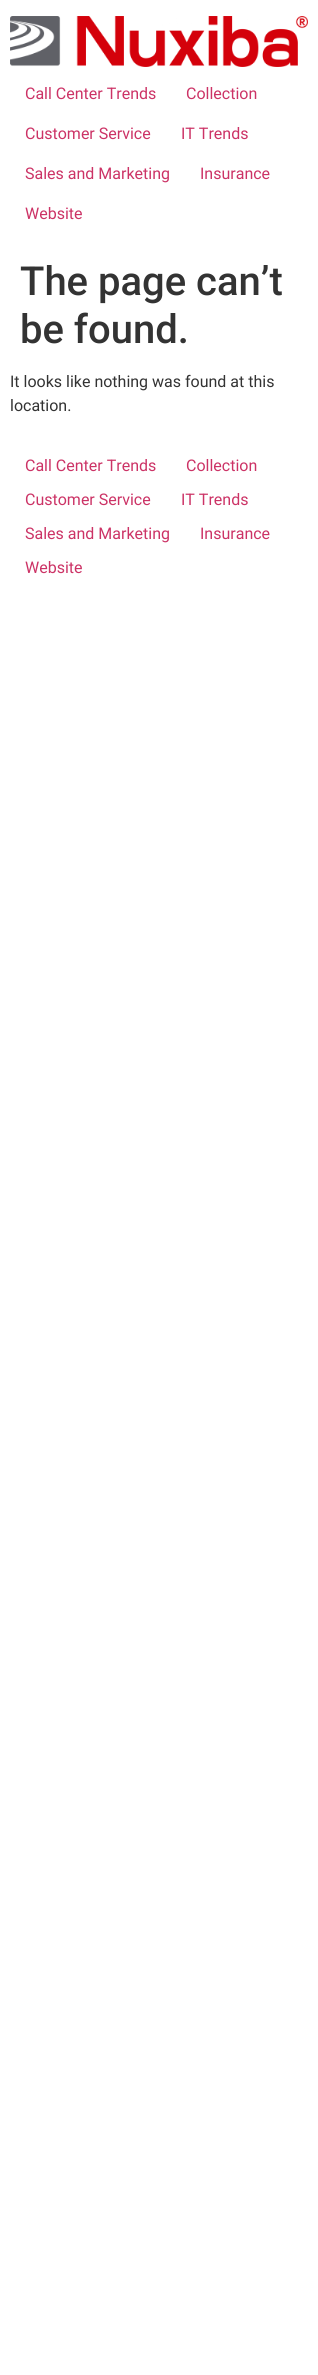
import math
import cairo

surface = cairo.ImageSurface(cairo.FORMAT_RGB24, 318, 2375)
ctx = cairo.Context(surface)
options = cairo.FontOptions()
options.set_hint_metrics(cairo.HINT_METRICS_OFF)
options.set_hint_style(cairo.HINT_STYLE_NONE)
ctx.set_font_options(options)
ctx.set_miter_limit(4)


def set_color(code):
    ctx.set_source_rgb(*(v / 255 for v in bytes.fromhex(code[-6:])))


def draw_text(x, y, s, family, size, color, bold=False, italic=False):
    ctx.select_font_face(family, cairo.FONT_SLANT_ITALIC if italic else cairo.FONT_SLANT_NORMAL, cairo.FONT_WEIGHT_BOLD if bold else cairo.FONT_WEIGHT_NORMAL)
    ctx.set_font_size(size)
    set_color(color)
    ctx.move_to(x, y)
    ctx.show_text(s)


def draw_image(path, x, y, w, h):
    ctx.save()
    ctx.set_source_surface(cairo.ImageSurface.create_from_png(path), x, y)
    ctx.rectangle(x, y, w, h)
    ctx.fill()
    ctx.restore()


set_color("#ffffff")
ctx.paint()
draw_image("assets/img1.png", 10, 16, 298, 51)
draw_text(25, 99, "Call Center Trends", "Roboto", 16, "#cc3366")
draw_text(186, 99, "Collection", "Roboto", 16, "#cc3366")
draw_text(25, 139, "Customer Service", "Roboto", 16, "#cc3366")
draw_text(181, 139, "IT Trends", "Roboto", 16, "#cc3366")
draw_text(25, 179, "Sales and Marketing", "Roboto", 16, "#cc3366")
draw_text(200, 179, "Insurance", "Roboto", 16, "#cc3366")
draw_text(25, 219, "Website", "Roboto", 16, "#cc3366")
draw_text(20, 295, "The page can’t", "Roboto Medium", 40, "#333333")
draw_text(20, 343, "be found.", "Roboto Medium", 40, "#333333")
draw_text(10, 387, "It looks like nothing was found at this", "Roboto", 16, "#333333")
draw_text(10, 411, "location.", "Roboto", 16, "#333333")
draw_text(25, 471, "Call Center Trends", "Roboto", 16, "#cc3366")
draw_text(186, 471, "Collection", "Roboto", 16, "#cc3366")
draw_text(25, 505, "Customer Service", "Roboto", 16, "#cc3366")
draw_text(181, 505, "IT Trends", "Roboto", 16, "#cc3366")
draw_text(25, 539, "Sales and Marketing", "Roboto", 16, "#cc3366")
draw_text(200, 539, "Insurance", "Roboto", 16, "#cc3366")
draw_text(25, 573, "Website", "Roboto", 16, "#cc3366")
surface.write_to_png("output.png")
